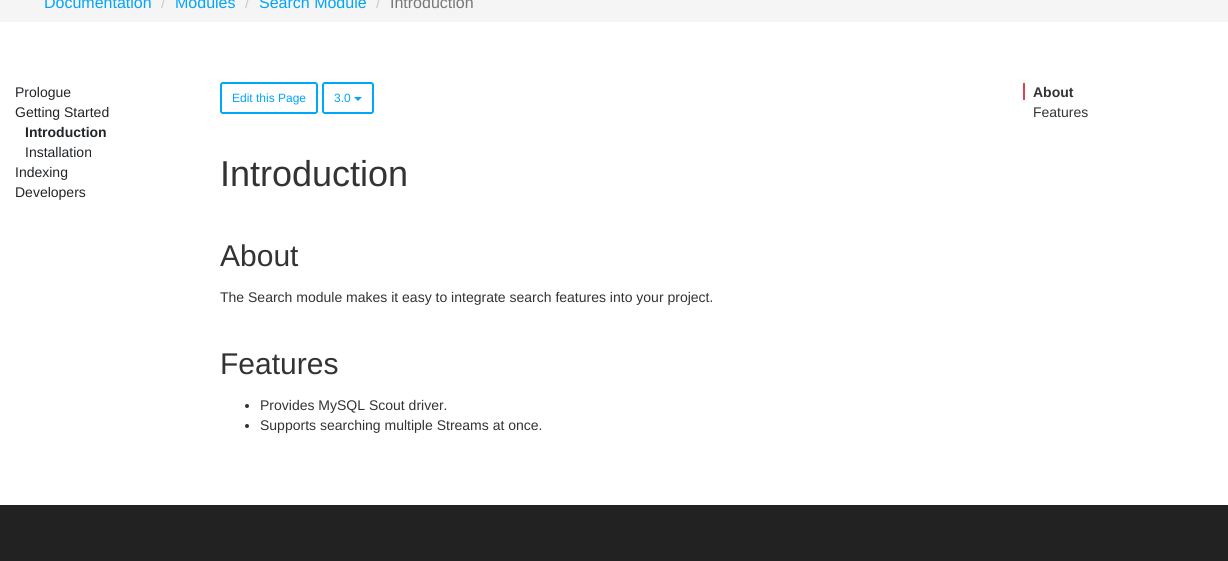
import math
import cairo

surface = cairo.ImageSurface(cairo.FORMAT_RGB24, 1228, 561)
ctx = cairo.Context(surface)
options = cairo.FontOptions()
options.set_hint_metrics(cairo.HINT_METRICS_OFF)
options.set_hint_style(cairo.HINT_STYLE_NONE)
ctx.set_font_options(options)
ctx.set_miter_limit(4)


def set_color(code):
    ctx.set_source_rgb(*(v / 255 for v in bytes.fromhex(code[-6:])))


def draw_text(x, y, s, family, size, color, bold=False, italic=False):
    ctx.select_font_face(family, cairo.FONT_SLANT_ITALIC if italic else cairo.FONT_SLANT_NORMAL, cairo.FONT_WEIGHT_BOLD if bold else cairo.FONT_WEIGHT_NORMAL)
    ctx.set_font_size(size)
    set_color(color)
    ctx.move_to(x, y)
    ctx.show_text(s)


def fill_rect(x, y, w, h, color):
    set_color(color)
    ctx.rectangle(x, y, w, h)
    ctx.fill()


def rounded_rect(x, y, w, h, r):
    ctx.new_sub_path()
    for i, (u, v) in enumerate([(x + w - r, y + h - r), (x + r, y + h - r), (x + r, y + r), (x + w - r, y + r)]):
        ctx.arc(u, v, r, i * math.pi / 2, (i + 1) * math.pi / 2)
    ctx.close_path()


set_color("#ffffff")
ctx.paint()
fill_rect(0, 0, 1228, 22, "#f5f5f5")
draw_text(44, 8, "Documentation", "Liberation Sans", 16, "#01a5fb")
draw_text(161, 8, "/", "Liberation Sans", 16, "#cccccc")
draw_text(175, 8, "Modules", "Liberation Sans", 16, "#01a5fb")
draw_text(245, 8, "/", "Liberation Sans", 16, "#cccccc")
draw_text(259, 8, "Search Module", "Liberation Sans", 16, "#01a5fb")
draw_text(376, 8, "/", "Liberation Sans", 16, "#cccccc")
draw_text(390, 8, "Introduction", "Liberation Sans", 16, "#777777")
draw_text(15, 97, "Prologue", "Liberation Sans", 14, "#212529")
draw_text(15, 117, "Getting Started", "Liberation Sans", 14, "#212529")
draw_text(25, 137, "Introduction", "Liberation Sans", 14, "#212529", bold=True)
draw_text(25, 157, "Installation", "Liberation Sans", 14, "#212529")
draw_text(15, 177, "Indexing", "Liberation Sans", 14, "#212529")
draw_text(15, 197, "Developers", "Liberation Sans", 14, "#212529")
rounded_rect(221, 83, 96, 30, 2)
set_color("#01a5fb")
ctx.stroke()
draw_text(232, 102, "Edit this Page", "Liberation Sans", 12, "#01a5fb")
rounded_rect(323, 83, 50, 30, 2)
ctx.stroke()
draw_text(334, 102, "3.0", "Liberation Sans", 12, "#01a5fb")
ctx.new_path()
ctx.move_to(354, 97)
ctx.line_to(362, 97)
ctx.line_to(358, 101)
ctx.close_path()
ctx.fill()
draw_text(220, 186, "Introduction", "Liberation Sans", 36, "#333333")
draw_text(220, 266, "About", "Liberation Sans", 30, "#333333")
draw_text(220, 302, "The Search module makes it easy to integrate search features into your project.", "Liberation Sans", 14, "#333333")
draw_text(220, 374, "Features", "Liberation Sans", 30, "#333333")
ctx.new_path()
ctx.arc(247, 406, 2, 0, 2 * math.pi)
ctx.fill()
draw_text(260, 410, "Provides MySQL Scout driver.", "Liberation Sans", 14, "#333333")
ctx.new_path()
ctx.arc(247, 426, 2, 0, 2 * math.pi)
ctx.fill()
draw_text(260, 430, "Supports searching multiple Streams at once.", "Liberation Sans", 14, "#333333")
fill_rect(1023, 83, 2, 17, "#dd424c")
draw_text(1033, 97, "About", "Liberation Sans", 14, "#333333", bold=True)
draw_text(1033, 117, "Features", "Liberation Sans", 14, "#333333")
fill_rect(0, 505, 1228, 56, "#222222")
surface.write_to_png("output.png")
